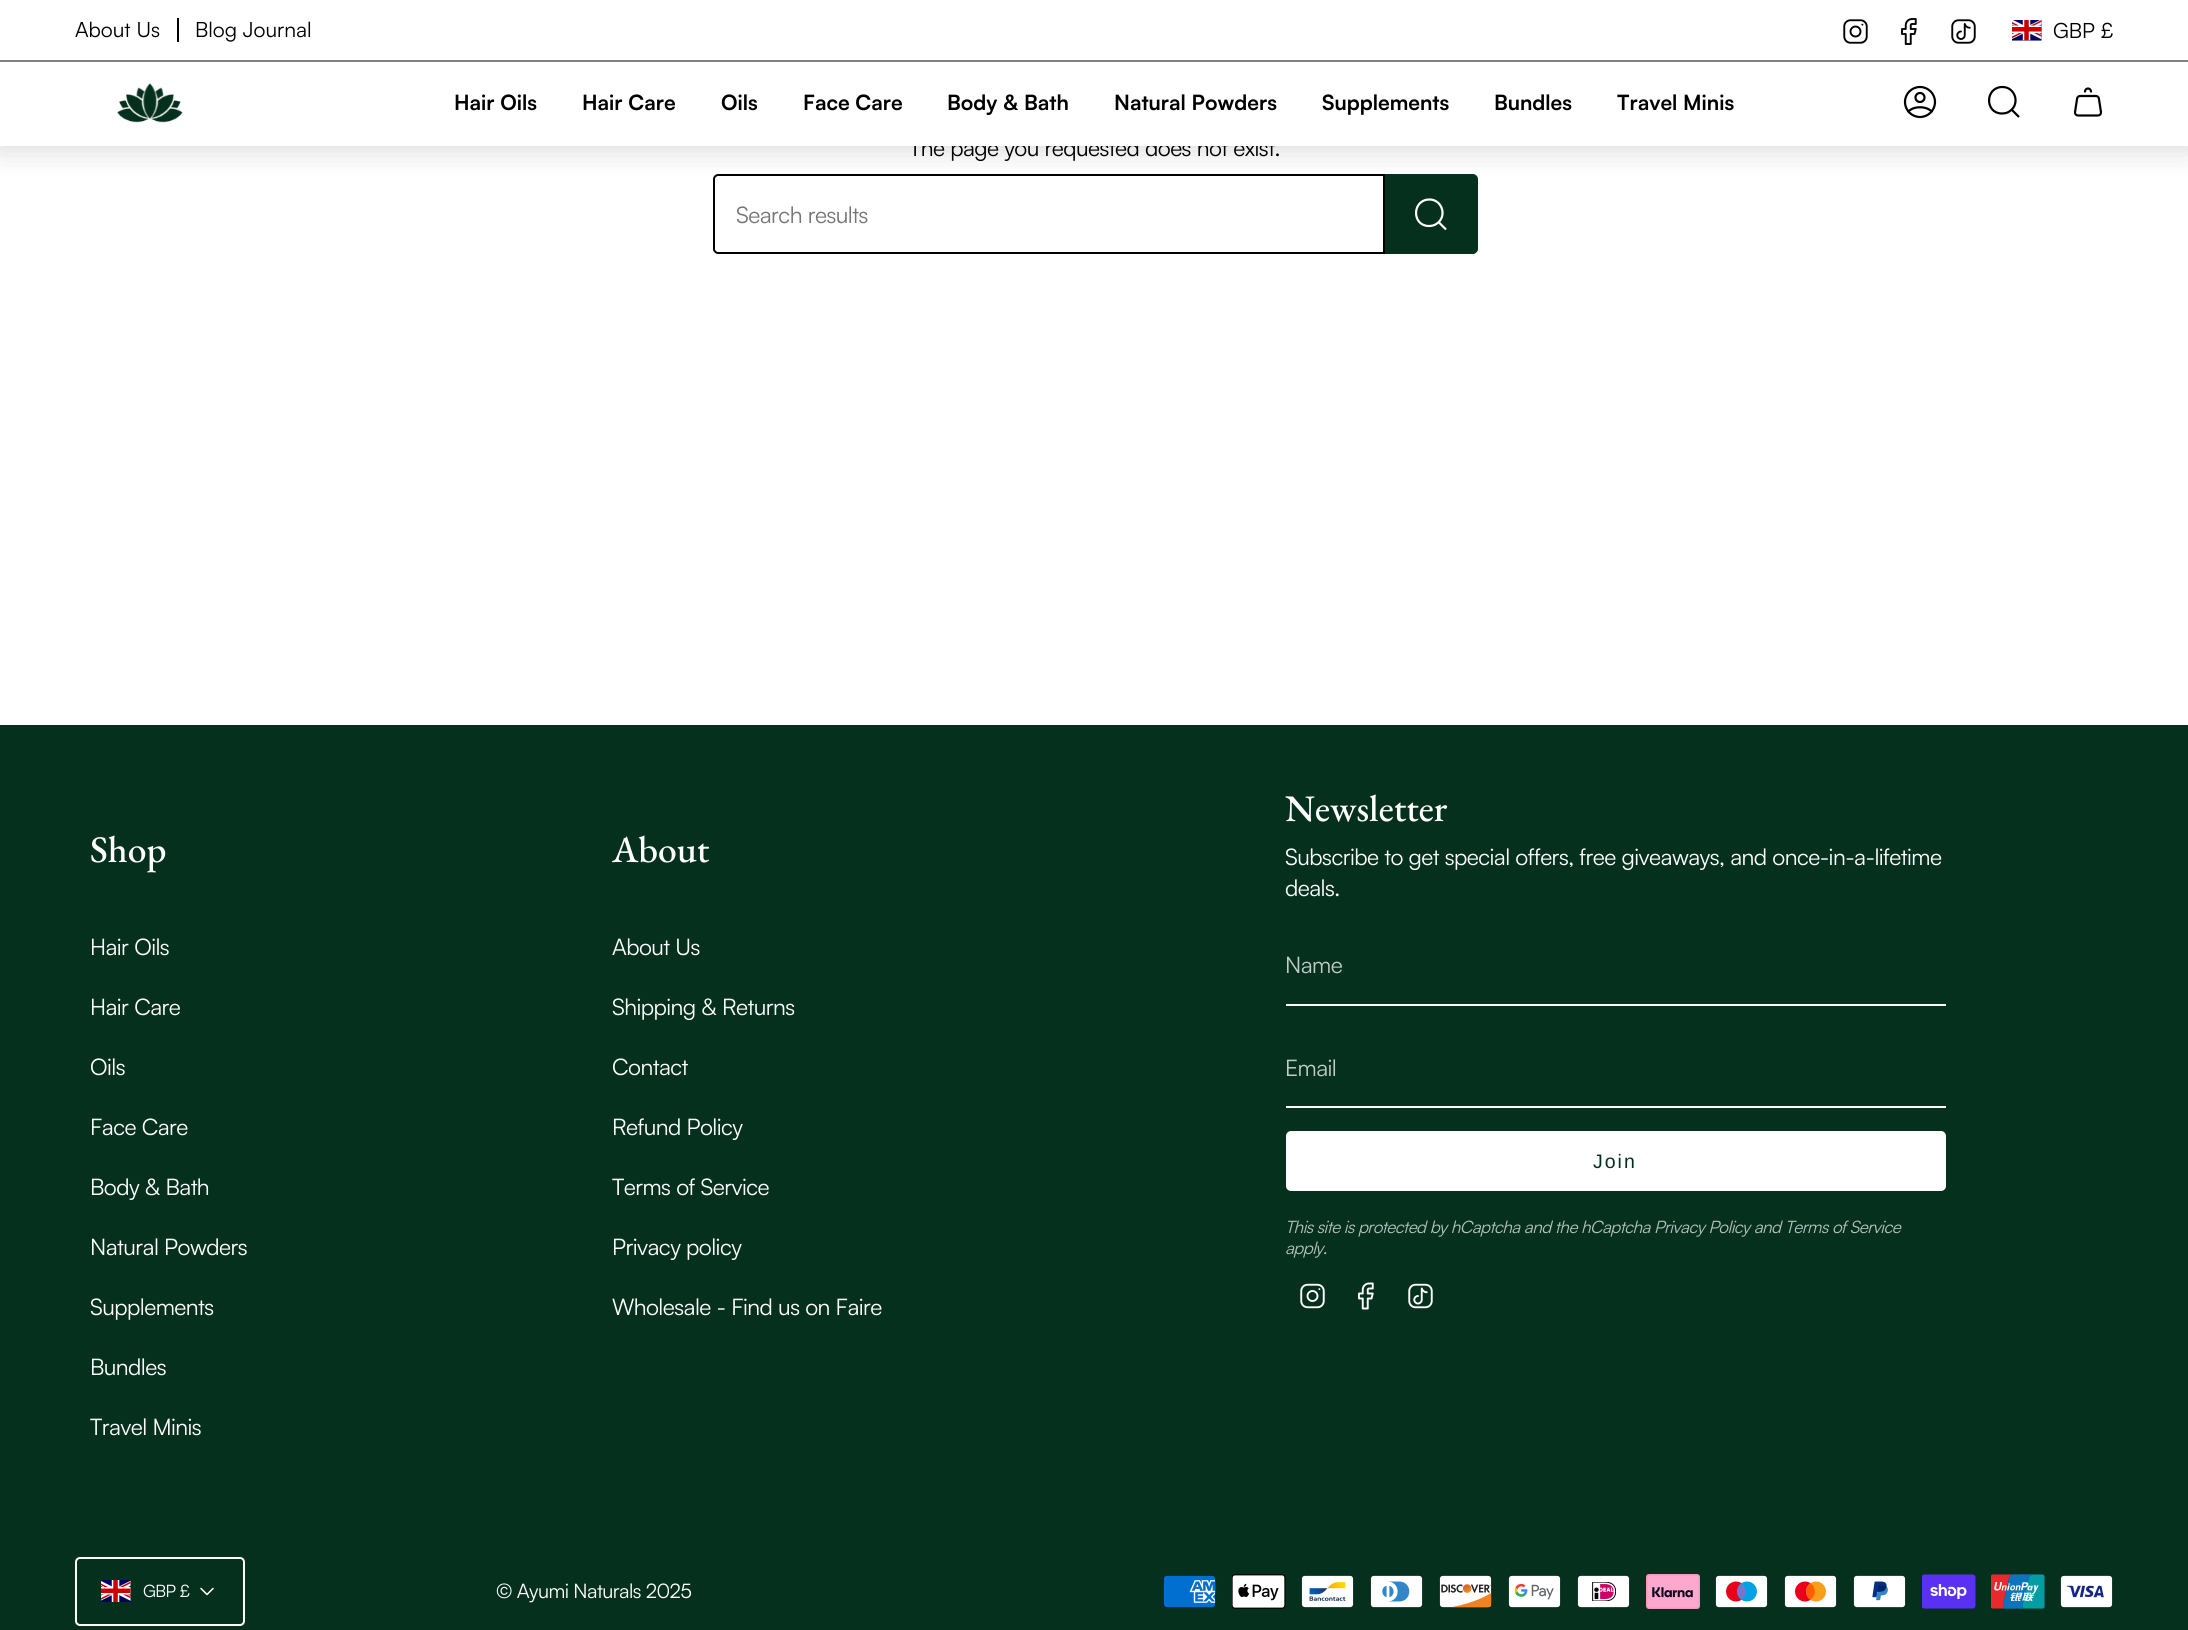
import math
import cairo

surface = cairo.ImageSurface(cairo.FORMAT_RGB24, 2188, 1630)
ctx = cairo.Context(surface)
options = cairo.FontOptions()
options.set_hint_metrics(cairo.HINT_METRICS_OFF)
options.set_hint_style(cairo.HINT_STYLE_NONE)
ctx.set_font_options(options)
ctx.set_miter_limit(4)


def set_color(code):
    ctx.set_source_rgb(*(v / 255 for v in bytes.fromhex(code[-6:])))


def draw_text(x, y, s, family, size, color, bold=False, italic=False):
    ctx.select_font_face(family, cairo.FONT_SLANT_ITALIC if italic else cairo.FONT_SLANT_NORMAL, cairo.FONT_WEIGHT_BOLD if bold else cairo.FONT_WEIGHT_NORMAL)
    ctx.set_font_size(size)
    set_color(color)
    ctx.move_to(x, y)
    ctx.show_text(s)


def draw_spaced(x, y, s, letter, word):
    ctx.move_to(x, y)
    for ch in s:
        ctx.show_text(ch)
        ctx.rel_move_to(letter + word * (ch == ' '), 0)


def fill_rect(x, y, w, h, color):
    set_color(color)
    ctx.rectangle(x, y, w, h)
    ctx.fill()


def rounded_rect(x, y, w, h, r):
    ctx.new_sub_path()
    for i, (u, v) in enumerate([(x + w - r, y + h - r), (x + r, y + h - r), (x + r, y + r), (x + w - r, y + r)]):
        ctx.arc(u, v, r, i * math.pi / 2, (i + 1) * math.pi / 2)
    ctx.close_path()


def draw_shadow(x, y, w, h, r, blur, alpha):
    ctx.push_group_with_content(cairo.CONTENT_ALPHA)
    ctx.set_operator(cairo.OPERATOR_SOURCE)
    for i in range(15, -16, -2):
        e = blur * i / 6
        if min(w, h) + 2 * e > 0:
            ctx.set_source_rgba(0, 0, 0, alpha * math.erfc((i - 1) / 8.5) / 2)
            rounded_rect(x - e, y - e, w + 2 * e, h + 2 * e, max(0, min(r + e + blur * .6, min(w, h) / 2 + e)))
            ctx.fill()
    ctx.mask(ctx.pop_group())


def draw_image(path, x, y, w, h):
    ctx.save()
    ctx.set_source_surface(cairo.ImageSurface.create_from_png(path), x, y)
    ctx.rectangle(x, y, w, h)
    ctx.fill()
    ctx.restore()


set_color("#ffffff")
ctx.paint()
ctx.new_path()
ctx.move_to(718, 175)
ctx.line_to(1384, 175)
ctx.line_to(1384, 253)
ctx.line_to(718, 253)
ctx.curve_to(716, 253, 714, 251, 714, 249)
ctx.line_to(714, 179)
ctx.curve_to(714, 177, 716, 175, 718, 175)
ctx.close_path()
set_color("#000000")
ctx.stroke()
set_color("#05301e")
ctx.new_path()
ctx.move_to(1386, 175)
ctx.line_to(1473, 175)
ctx.curve_to(1475, 175, 1477, 177, 1477, 179)
ctx.line_to(1477, 249)
ctx.curve_to(1477, 251, 1475, 253, 1473, 253)
ctx.line_to(1386, 253)
ctx.close_path()
ctx.fill_preserve()
ctx.stroke()
set_color("#000000")
draw_shadow(-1, 2, 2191, 148, 0, 15, 0.15)
ctx.select_font_face("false")
ctx.set_font_size(22.8)
set_color("#000000")
draw_spaced(909, 156, "The page you requested does not exist.", -0.57, 0)
fill_rect(0, 0, 2188, 146, "#ffffff")
fill_rect(177, 18, 2, 24, "#000000")
draw_text(75, 37, "About Us", "false", 21, "#000000")
draw_text(195, 37, "Blog Journal", "false", 21, "#000000")
draw_image("assets/img1.png", 1843, 19, 25, 25)
draw_image("assets/img2.png", 1901, 18, 16, 27)
draw_image("assets/img3.png", 1951, 19, 25, 25)
draw_image("assets/img4.png", 2012, 20, 30, 21)
draw_text(2053, 38, "GBP £", "false", 21, "#000000")
fill_rect(0, 60, 2188, 2, "#808080")
draw_image("assets/img5.png", 116, 83, 67, 40)
draw_text(454, 110, "Hair Oils", "false", 21, "#000000", bold=True)
draw_text(582, 110, "Hair Care", "false", 21, "#000000", bold=True)
draw_text(721, 110, "Oils", "false", 21, "#000000", bold=True)
draw_text(803, 110, "Face Care", "false", 21, "#000000", bold=True)
draw_text(947, 110, "Body & Bath", "false", 21, "#000000", bold=True)
draw_text(1114, 110, "Natural Powders", "false", 21, "#000000", bold=True)
draw_text(1322, 110, "Supplements", "false", 21, "#000000", bold=True)
draw_text(1494, 110, "Bundles", "false", 21, "#000000", bold=True)
draw_text(1617, 110, "Travel Minis", "false", 21, "#000000", bold=True)
draw_image("assets/img6.png", 1903, 85, 34, 34)
ctx.new_path()
ctx.move_to(2002.5, 87)
ctx.curve_to(2015, 87, 2020.5, 103.5, 2010, 111)
ctx.curve_to(2007.5, 113, 2004.5, 113.5, 2001.5, 113.5)
ctx.curve_to(1984.5, 113, 1985, 87, 2002.5, 87)
ctx.close_path()
ctx.move_to(2011.5, 109.5)
ctx.line_to(2019, 117)
ctx.set_line_width(2.2)
ctx.stroke()
draw_image("assets/img7.png", 2074, 87, 28, 30)
ctx.save()
ctx.rectangle(737, 198, 525, 32)
ctx.clip()
ctx.select_font_face("false")
ctx.set_font_size(22.8)
set_color("#757575")
draw_spaced(736, 223, "Search results", -0.57, 0)
ctx.restore()
ctx.new_path()
ctx.move_to(1429.5, 199.5)
ctx.curve_to(1442, 199.5, 1447.5, 216, 1437, 223.5)
ctx.curve_to(1434.5, 225.5, 1431.5, 226, 1428.5, 226)
ctx.curve_to(1411.5, 225.5, 1412, 199.5, 1429.5, 199.5)
ctx.close_path()
ctx.move_to(1438.5, 222)
ctx.line_to(1446, 229.5)
set_color("#ffffff")
ctx.stroke()
fill_rect(0, 725, 2188, 905, "#05301e")
draw_text(90, 862, "Shop", "EB Garamond Medium", 37.5, "#ffffff")
ctx.select_font_face("false")
ctx.set_font_size(22.8)
draw_spaced(90, 955, "Hair Oils", -0.57, 0)
draw_spaced(90, 1015, "Hair Care", -0.57, 0)
draw_spaced(90, 1075, "Oils", -0.57, 0)
draw_spaced(90, 1135, "Face Care", -0.57, 0)
draw_spaced(90, 1195, "Body & Bath", -0.57, 0)
draw_spaced(90, 1255, "Natural Powders", -0.57, 0)
draw_spaced(90, 1315, "Supplements", -0.57, 0)
draw_spaced(90, 1375, "Bundles", -0.57, 0)
draw_spaced(90, 1435, "Travel Minis", -0.57, 0)
draw_text(612, 862, "About", "EB Garamond Medium", 37.5, "#ffffff")
ctx.select_font_face("false")
ctx.set_font_size(22.8)
draw_spaced(612, 955, "About Us", -0.57, 0)
draw_spaced(612, 1015, "Shipping & Returns", -0.57, 0)
draw_spaced(612, 1075, "Contact", -0.57, 0)
draw_spaced(612, 1135, "Refund Policy", -0.57, 0)
draw_spaced(612, 1195, "Terms of Service", -0.57, 0)
draw_spaced(612, 1255, "Privacy policy", -0.57, 0)
draw_spaced(612, 1315, "Wholesale - Find us on Faire", -0.57, 0)
draw_text(1285, 821, "Newsletter", "EB Garamond Medium", 37.5, "#ffffff")
ctx.select_font_face("false")
ctx.set_font_size(22.8)
draw_spaced(1285, 865, "Subscribe to get special offers, free giveaways, and once-in-a-lifetime", -0.57, 0)
draw_spaced(1285, 896, "deals.", -0.57, 0)
fill_rect(1286, 1004, 660, 2, "#ffffff")
set_color("#c1cbc7")
draw_spaced(1285, 973, "Name", -0.57, 0)
fill_rect(1286, 1106, 660, 2, "#ffffff")
set_color("#c1cbc7")
draw_spaced(1285, 1076, "Email", -0.57, 0)
set_color("#ffffff")
rounded_rect(1287, 1132, 658, 58, 4)
ctx.fill_preserve()
ctx.set_line_width(2)
ctx.stroke()
ctx.select_font_face("Liberation Sans")
ctx.set_font_size(19.5)
set_color("#05301e")
draw_spaced(1593, 1168, "Join", 2, 0)
ctx.select_font_face("false", cairo.FONT_SLANT_ITALIC)
ctx.set_font_size(17.1)
set_color("#b4c1bc")
draw_spaced(1285, 1233, "This site is protected by hCaptcha and the hCaptcha", -0.57, 0)
draw_spaced(1654, 1233, "Privacy Policy and Terms of Service", -0.57, 0)
draw_spaced(1285, 1254, "apply.", -0.57, 0)
draw_image("assets/img8.png", 1300, 1283, 25, 26)
draw_image("assets/img9.png", 1358, 1282, 16, 28)
draw_image("assets/img10.png", 1408, 1283, 25, 26)
rounded_rect(76, 1558, 168, 67, 4)
set_color("#ffffff")
ctx.stroke()
draw_image("assets/img11.png", 101, 1580, 30, 22)
ctx.select_font_face("false")
draw_spaced(143, 1597, "GBP £", -0.5, 0)
ctx.new_path()
ctx.move_to(201, 1588.5)
ctx.line_to(207, 1594.5)
ctx.line_to(213, 1588.5)
ctx.set_line_width(1.5)
ctx.set_line_cap(cairo.LINE_CAP_ROUND)
ctx.set_line_join(cairo.LINE_JOIN_ROUND)
ctx.stroke()
ctx.set_font_size(20)
draw_spaced(496, 1598, "© Ayumi Naturals 2025", -0.57, 0)
draw_image("assets/img12.png", 1163, 1575, 53, 33)
draw_image("assets/img13.png", 1232, 1574, 54, 35)
draw_image("assets/img14.png", 1301, 1575, 53, 33)
draw_image("assets/img15.png", 1370, 1575, 53, 33)
draw_image("assets/img16.png", 1439, 1575, 53, 33)
draw_image("assets/img17.png", 1508, 1575, 53, 33)
draw_image("assets/img18.png", 1577, 1575, 53, 33)
draw_image("assets/img19.png", 1646, 1574, 54, 35)
draw_image("assets/img20.png", 1715, 1575, 53, 33)
draw_image("assets/img21.png", 1784, 1575, 53, 33)
draw_image("assets/img22.png", 1853, 1575, 53, 33)
draw_image("assets/img23.png", 1922, 1574, 54, 35)
draw_image("assets/img24.png", 1991, 1574, 54, 35)
draw_image("assets/img25.png", 2060, 1575, 53, 33)
surface.write_to_png("output.png")
